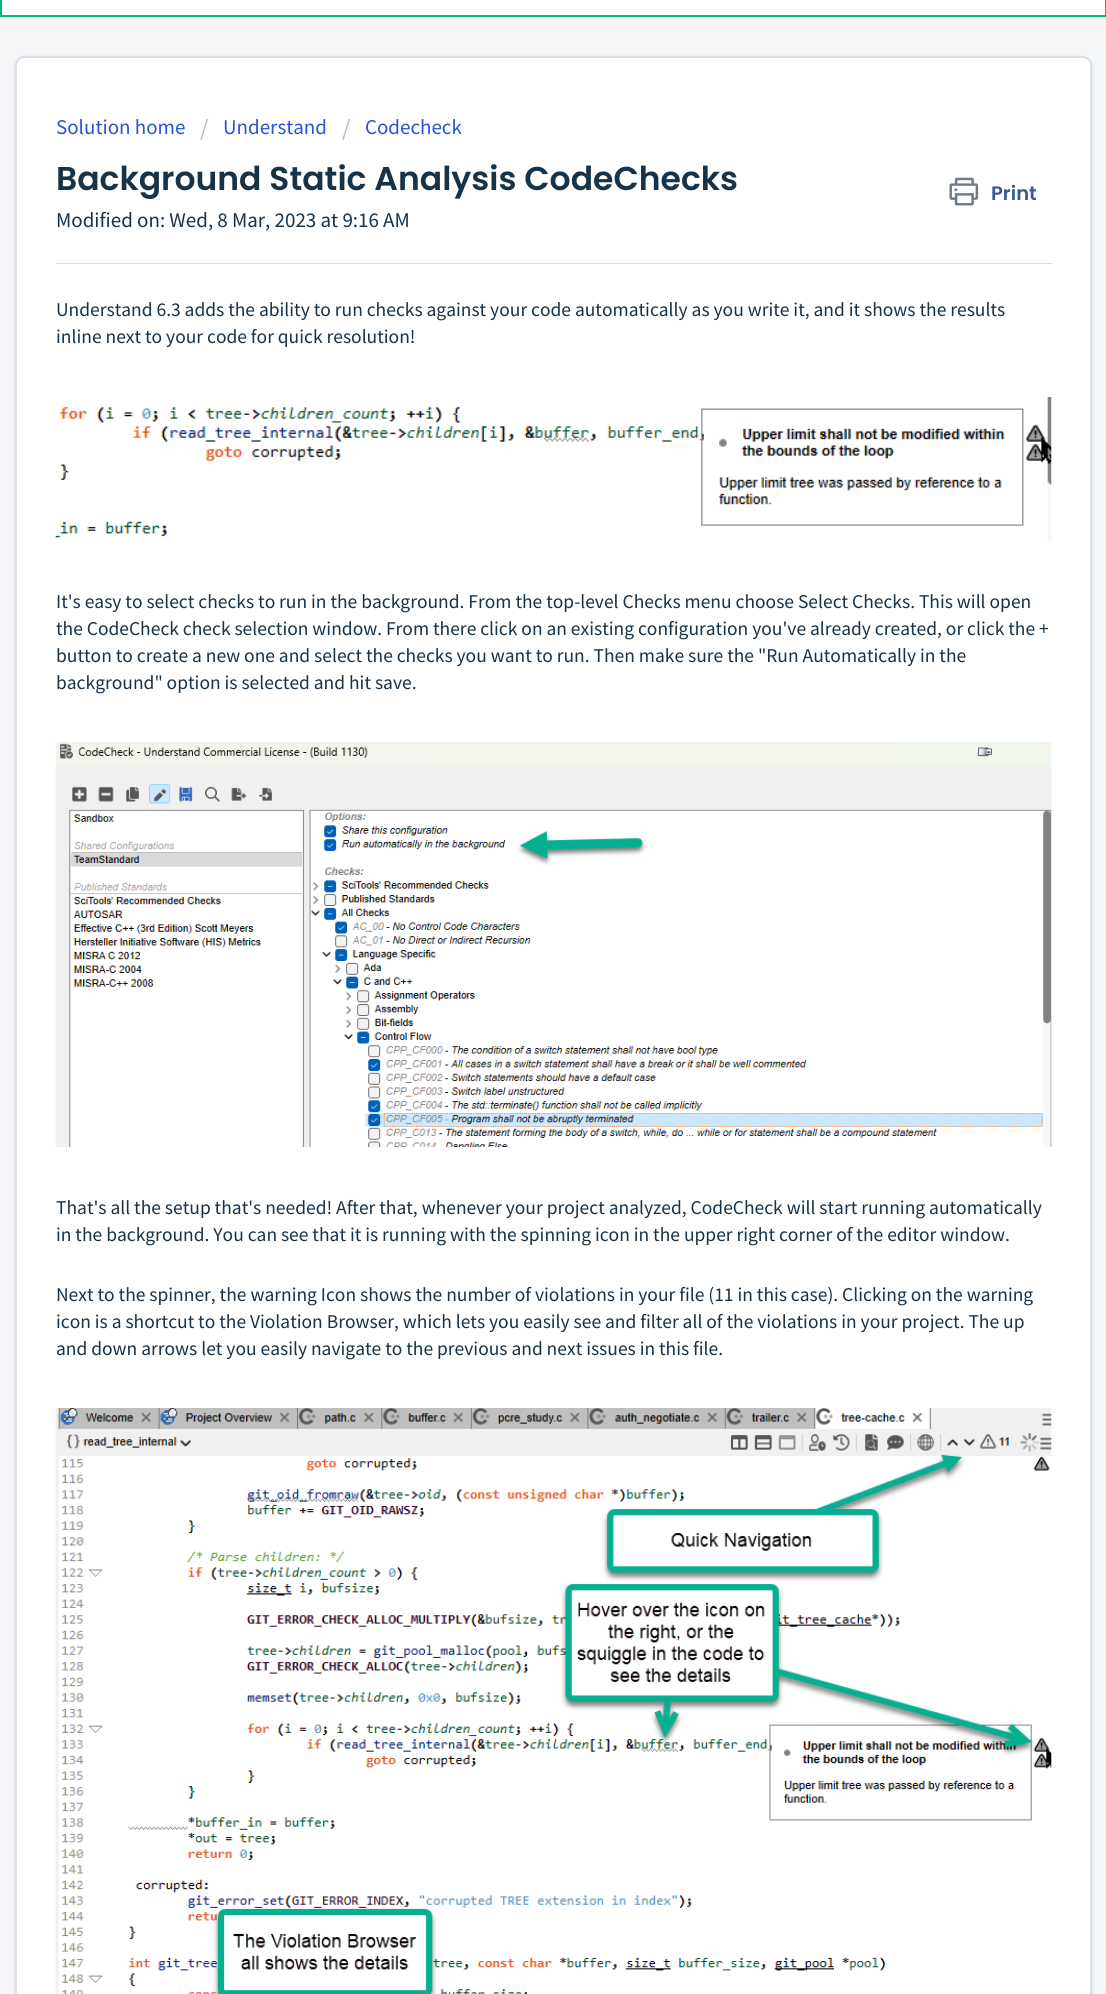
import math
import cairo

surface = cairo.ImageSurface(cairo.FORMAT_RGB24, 1106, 1994)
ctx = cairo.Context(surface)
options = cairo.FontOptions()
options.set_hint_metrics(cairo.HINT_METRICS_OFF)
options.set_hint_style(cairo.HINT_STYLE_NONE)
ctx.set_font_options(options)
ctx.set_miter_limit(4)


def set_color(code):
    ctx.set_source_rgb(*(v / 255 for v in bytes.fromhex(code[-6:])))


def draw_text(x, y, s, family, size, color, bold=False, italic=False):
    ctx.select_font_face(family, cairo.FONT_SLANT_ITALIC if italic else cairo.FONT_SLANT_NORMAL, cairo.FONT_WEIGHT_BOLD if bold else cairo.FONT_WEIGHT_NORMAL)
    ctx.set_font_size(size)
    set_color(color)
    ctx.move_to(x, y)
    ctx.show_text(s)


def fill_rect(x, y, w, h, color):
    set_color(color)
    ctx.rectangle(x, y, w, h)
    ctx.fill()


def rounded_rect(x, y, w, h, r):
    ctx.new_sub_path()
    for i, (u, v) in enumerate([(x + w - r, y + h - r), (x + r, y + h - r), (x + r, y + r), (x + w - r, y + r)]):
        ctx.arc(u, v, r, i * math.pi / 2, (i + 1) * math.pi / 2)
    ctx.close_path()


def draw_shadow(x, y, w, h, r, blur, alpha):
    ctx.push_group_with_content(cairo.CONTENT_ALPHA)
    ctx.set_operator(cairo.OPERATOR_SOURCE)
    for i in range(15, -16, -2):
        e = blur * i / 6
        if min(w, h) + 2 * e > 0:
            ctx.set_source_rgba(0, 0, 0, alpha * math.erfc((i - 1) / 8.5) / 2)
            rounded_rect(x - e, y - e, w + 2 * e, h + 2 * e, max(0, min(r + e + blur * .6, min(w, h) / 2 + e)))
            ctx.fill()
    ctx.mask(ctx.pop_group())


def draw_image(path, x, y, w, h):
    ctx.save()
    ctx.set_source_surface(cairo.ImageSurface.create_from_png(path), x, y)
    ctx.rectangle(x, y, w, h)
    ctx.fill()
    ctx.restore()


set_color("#f3f5f7")
ctx.paint()
set_color("#ffffff")
ctx.rectangle(1, -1, 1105, 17)
ctx.fill_preserve()
set_color("#02b875")
ctx.stroke()
fill_rect(15, 56, 1077, 9, "#f8f9fa")
set_color("#3f3f44")
draw_shadow(15, 57, 1077, 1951, 9, 1.5, 0.15)
set_color("#ffffff")
rounded_rect(16, 57, 1075, 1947, 8)
ctx.fill_preserve()
set_color("#dadfe3")
ctx.stroke()
draw_text(56, 134, "Solution home", "Source Sans Pro", 21, "#2753d7")
draw_text(200, 136, "/", "Source Sans Pro", 24, "#bbbbbb")
draw_text(223, 134, "Understand", "Source Sans Pro", 21, "#2753d7")
draw_text(342, 136, "/", "Source Sans Pro", 24, "#bbbbbb")
draw_text(365, 134, "Codecheck", "Source Sans Pro", 21, "#2753d7")
draw_text(56, 190, "Background Static Analysis CodeChecks", "Poppins SemiBold", 33, "#183247")
draw_image("assets/img1.png", 949, 177, 30, 29)
draw_text(991, 200, "Print", "Poppins SemiBold", 19.5, "#3b5998")
draw_text(56, 227, "Modified on: Wed, 8 Mar, 2023 at 9:16 AM", "Source Sans Pro", 21, "#183247")
fill_rect(56, 263, 996, 1, "#dcdcdc")
draw_text(56, 316, "Understand 6.3 adds the ability to run checks against your code automatically as you write it, and it shows the results", "Source Sans Pro", 19.5, "#183247")
draw_text(56, 343, "inline next to your code for quick resolution!", "Source Sans Pro", 19.5, "#183247")
draw_image("assets/img2.png", 55, 397, 997, 144)
draw_text(56, 608, "It's easy to select checks to run in the background. From the top-level Checks menu choose Select Checks. This will open", "Source Sans Pro", 19.5, "#183247")
draw_text(56, 635, "the CodeCheck check selection window. From there click on an existing configuration you've already created, or click the +", "Source Sans Pro", 19.5, "#183247")
draw_text(56, 662, "button to create a new one and select the checks you want to run. Then make sure the \"Run Automatically in the", "Source Sans Pro", 19.5, "#183247")
draw_text(56, 689, "background\" option is selected and hit save.", "Source Sans Pro", 19.5, "#183247")
draw_image("assets/img3.png", 55, 742, 997, 405)
draw_text(56, 1214, "That's all the setup that's needed! After that, whenever your project analyzed, CodeCheck will start running automatically", "Source Sans Pro", 19.5, "#183247")
draw_text(56, 1241, "in the background. You can see that it is running with the spinning icon in the upper right corner of the editor window.", "Source Sans Pro", 19.5, "#183247")
draw_text(56, 1301, "Next to the spinner, the warning Icon shows the number of violations in your file (11 in this case). Clicking on the warning", "Source Sans Pro", 19.5, "#183247")
draw_text(56, 1328, "icon is a shortcut to the Violation Browser, which lets you easily see and filter all of the violations in your project. The up", "Source Sans Pro", 19.5, "#183247")
draw_text(56, 1355, "and down arrows let you easily navigate to the previous and next issues in this file.", "Source Sans Pro", 19.5, "#183247")
draw_image("assets/img4.png", 55, 1408, 997, 586)
surface.write_to_png("output.png")
